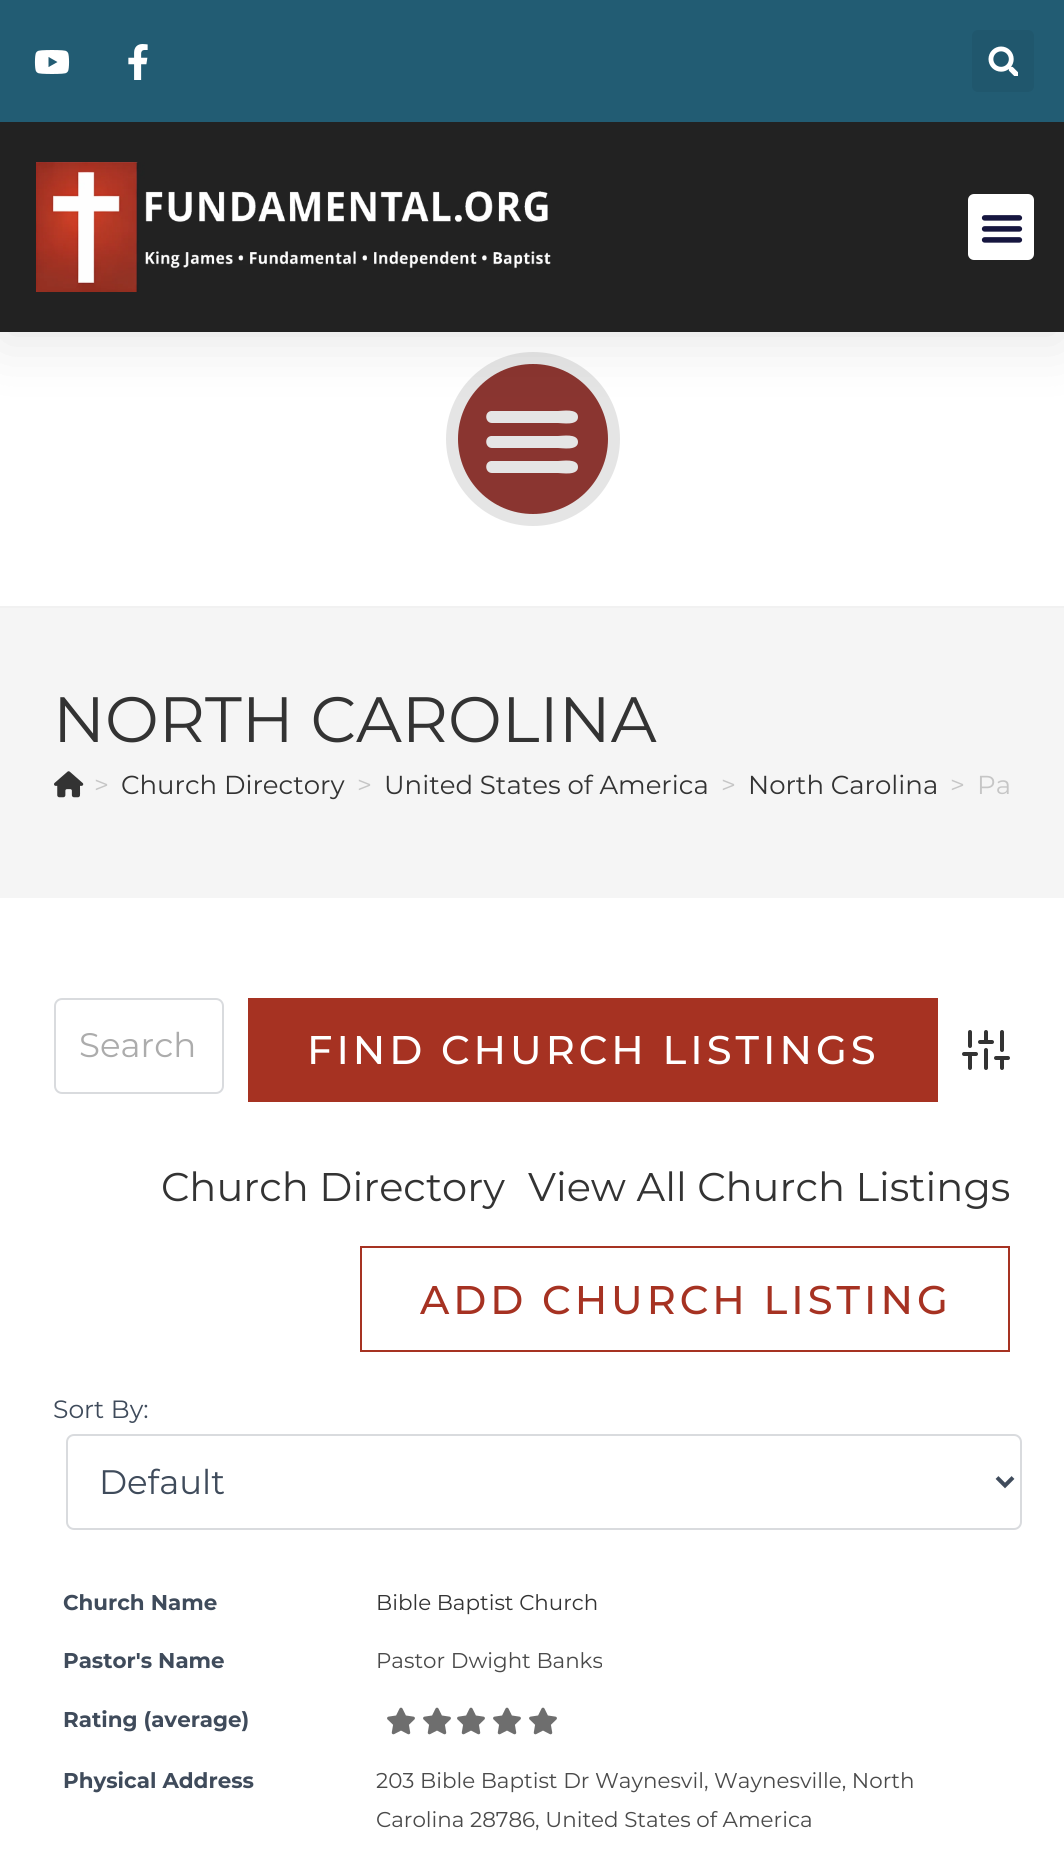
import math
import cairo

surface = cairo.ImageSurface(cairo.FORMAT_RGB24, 1064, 1854)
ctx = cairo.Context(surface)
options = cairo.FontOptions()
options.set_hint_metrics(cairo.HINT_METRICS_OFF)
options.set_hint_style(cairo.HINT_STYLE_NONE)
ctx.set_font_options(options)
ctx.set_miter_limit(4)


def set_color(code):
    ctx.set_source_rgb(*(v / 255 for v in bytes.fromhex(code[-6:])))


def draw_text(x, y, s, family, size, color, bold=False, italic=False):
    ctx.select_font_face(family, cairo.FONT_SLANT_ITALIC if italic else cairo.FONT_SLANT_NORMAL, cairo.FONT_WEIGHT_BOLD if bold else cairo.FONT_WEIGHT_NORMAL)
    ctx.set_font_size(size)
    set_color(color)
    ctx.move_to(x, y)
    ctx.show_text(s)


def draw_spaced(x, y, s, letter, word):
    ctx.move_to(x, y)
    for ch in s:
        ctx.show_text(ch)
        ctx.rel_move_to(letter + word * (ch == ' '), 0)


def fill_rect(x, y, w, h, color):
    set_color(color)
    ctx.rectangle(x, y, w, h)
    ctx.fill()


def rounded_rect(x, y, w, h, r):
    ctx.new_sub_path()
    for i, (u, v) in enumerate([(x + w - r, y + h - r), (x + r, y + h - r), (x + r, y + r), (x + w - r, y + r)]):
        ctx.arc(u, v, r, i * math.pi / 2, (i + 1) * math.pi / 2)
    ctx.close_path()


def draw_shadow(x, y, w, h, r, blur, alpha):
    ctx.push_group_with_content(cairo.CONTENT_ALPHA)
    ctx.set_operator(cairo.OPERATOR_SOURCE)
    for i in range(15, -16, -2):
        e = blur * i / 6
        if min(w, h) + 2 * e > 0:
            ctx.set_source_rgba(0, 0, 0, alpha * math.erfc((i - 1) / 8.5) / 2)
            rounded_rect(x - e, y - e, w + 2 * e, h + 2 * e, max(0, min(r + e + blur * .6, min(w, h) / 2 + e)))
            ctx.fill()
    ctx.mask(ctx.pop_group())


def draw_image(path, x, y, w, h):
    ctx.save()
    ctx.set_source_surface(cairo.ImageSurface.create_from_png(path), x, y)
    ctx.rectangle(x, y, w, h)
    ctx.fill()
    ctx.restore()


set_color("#ffffff")
ctx.paint()
fill_rect(0, 606, 1064, 2, "#f1f1f1")
set_color("#8a3530")
ctx.arc(533, 439, 81, 0, 2 * math.pi)
ctx.fill_preserve()
set_color("#e5e5e5")
ctx.set_line_width(12)
ctx.stroke()
ctx.new_path()
ctx.move_to(492, 423)
ctx.line_to(558, 423)
ctx.curve_to(562, 423, 578, 426, 578, 417)
ctx.curve_to(578, 408, 562, 411, 558, 411)
ctx.line_to(491, 411)
ctx.curve_to(484, 412, 485, 423, 492, 423)
ctx.close_path()
ctx.move_to(492, 448)
ctx.line_to(558, 448)
ctx.curve_to(562, 448, 578, 451, 578, 442)
ctx.curve_to(578, 433, 562, 436, 558, 436)
ctx.line_to(491, 436)
ctx.curve_to(484, 437, 485, 448, 492, 448)
ctx.close_path()
ctx.move_to(492, 473)
ctx.line_to(558, 473)
ctx.curve_to(562, 473, 578, 476, 578, 467)
ctx.curve_to(578, 458, 562, 461, 558, 461)
ctx.line_to(491, 461)
ctx.curve_to(484, 462, 485, 473, 492, 473)
ctx.close_path()
ctx.fill()
set_color("#000000")
draw_shadow(0, 10, 1064, 332, 0, 30, 0.1)
fill_rect(0, 0, 1064, 122, "#225c73")
draw_image("assets/img1.png", 34, 50, 36, 24)
draw_image("assets/img2.png", 128, 44, 20, 36)
set_color("#20576d")
rounded_rect(972, 30, 62, 62, 6)
ctx.fill()
draw_image("assets/img3.png", 988, 46, 30, 30)
fill_rect(0, 122, 1064, 210, "#222222")
draw_image("assets/img4.png", 36, 162, 515, 130)
set_color("#ffffff")
rounded_rect(968, 194, 66, 66, 6)
ctx.fill()
draw_image("assets/img5.png", 981, 215, 42, 28)
fill_rect(0, 608, 1064, 290, "#f5f5f5")
draw_text(53, 742, "NORTH CAROLINA", "Montserrat", 64, "#333333")
draw_image("assets/img6.png", 54, 771, 30, 27)
draw_text(94, 794, ">", "Montserrat", 26, "#c6c6c6")
draw_text(121, 794, "Church Directory", "Montserrat", 26, "#333333")
draw_text(357, 794, ">", "Montserrat", 26, "#c6c6c6")
draw_text(384, 794, "United States of America", "Montserrat", 26, "#333333")
draw_text(721, 794, ">", "Montserrat", 26, "#c6c6c6")
draw_text(748, 794, "North Carolina", "Montserrat", 26, "#333333")
draw_text(950, 794, ">", "Montserrat", 26, "#c6c6c6")
draw_text(977, 794, "Pa", "Montserrat", 26, "#c6c6c6")
rounded_rect(55, 999, 168, 94, 7)
set_color("#d9dbde")
ctx.set_line_width(2)
ctx.stroke()
draw_text(79, 1057, "Search", "Montserrat", 34, "#acacac")
fill_rect(248, 998, 690, 104, "#a63222")
ctx.select_font_face("Montserrat Medium")
ctx.set_font_size(40)
set_color("#ffffff")
draw_spaced(307, 1064, "FIND CHURCH LISTINGS", 4, 0)
ctx.new_path()
ctx.move_to(970, 1068)
ctx.line_to(970, 1054)
ctx.move_to(970, 1046)
ctx.line_to(970, 1032)
ctx.move_to(986, 1068)
ctx.line_to(986, 1050)
ctx.move_to(986, 1042)
ctx.line_to(986, 1032)
ctx.move_to(1002, 1068)
ctx.line_to(1002, 1058)
ctx.move_to(1002, 1050)
ctx.line_to(1002, 1032)
ctx.move_to(964, 1054)
ctx.line_to(976, 1054)
ctx.move_to(980, 1042)
ctx.line_to(992, 1042)
ctx.move_to(996, 1058)
ctx.line_to(1008, 1058)
set_color("#333333")
ctx.set_line_width(4)
ctx.set_line_cap(cairo.LINE_CAP_ROUND)
ctx.set_line_join(cairo.LINE_JOIN_ROUND)
ctx.stroke()
draw_text(161, 1201, "Church Directory", "Montserrat", 40, "#333333")
draw_text(528, 1201, "View All Church Listings", "Montserrat", 40, "#333333")
ctx.rectangle(361, 1247, 648, 104)
set_color("#a63222")
ctx.set_line_width(2)
ctx.set_line_cap(cairo.LINE_CAP_BUTT)
ctx.set_line_join(cairo.LINE_JOIN_MITER)
ctx.stroke()
ctx.select_font_face("Montserrat Medium")
draw_spaced(420, 1314, "ADD CHURCH LISTING", 4, 0)
draw_text(53, 1418, "Sort By:", "Montserrat", 25, "#3f4b5b")
rounded_rect(67, 1435, 954, 94, 7)
set_color("#d9dbde")
ctx.stroke()
ctx.new_path()
ctx.move_to(997, 1477.5)
ctx.line_to(1005, 1485.5)
ctx.line_to(1013, 1477.5)
set_color("#3f4b5b")
ctx.set_line_width(4)
ctx.stroke()
draw_text(99, 1494, "Default", "Montserrat", 34, "#3f4b5b")
draw_text(63, 1610, "Church Name", "Montserrat", 21.4, "#3f4b5b", bold=True)
draw_text(376, 1610, "Bible Baptist Church", "Montserrat", 21.4, "#333333")
draw_text(63, 1668, "Pastor's Name", "Montserrat", 21.4, "#3f4b5b", bold=True)
draw_text(376, 1668, "Pastor Dwight Banks", "Montserrat", 21.4, "#4a4a4a")
draw_text(63, 1727, "Rating (average)", "Montserrat", 21.4, "#3f4b5b", bold=True)
draw_image("assets/img7.png", 387, 1707, 28, 28)
draw_image("assets/img7.png", 423, 1707, 28, 28)
draw_image("assets/img7.png", 457, 1707, 28, 28)
draw_image("assets/img7.png", 493, 1707, 28, 28)
draw_image("assets/img7.png", 529, 1707, 28, 28)
draw_text(63, 1788, "Physical Address", "Montserrat", 21.4, "#3f4b5b", bold=True)
draw_text(376, 1788, "203 Bible Baptist Dr Waynesvil, Waynesville, North", "Montserrat", 21.4, "#4a4a4a")
draw_text(376, 1827, "Carolina 28786, United States of America", "Montserrat", 21.4, "#4a4a4a")
surface.write_to_png("output.png")
